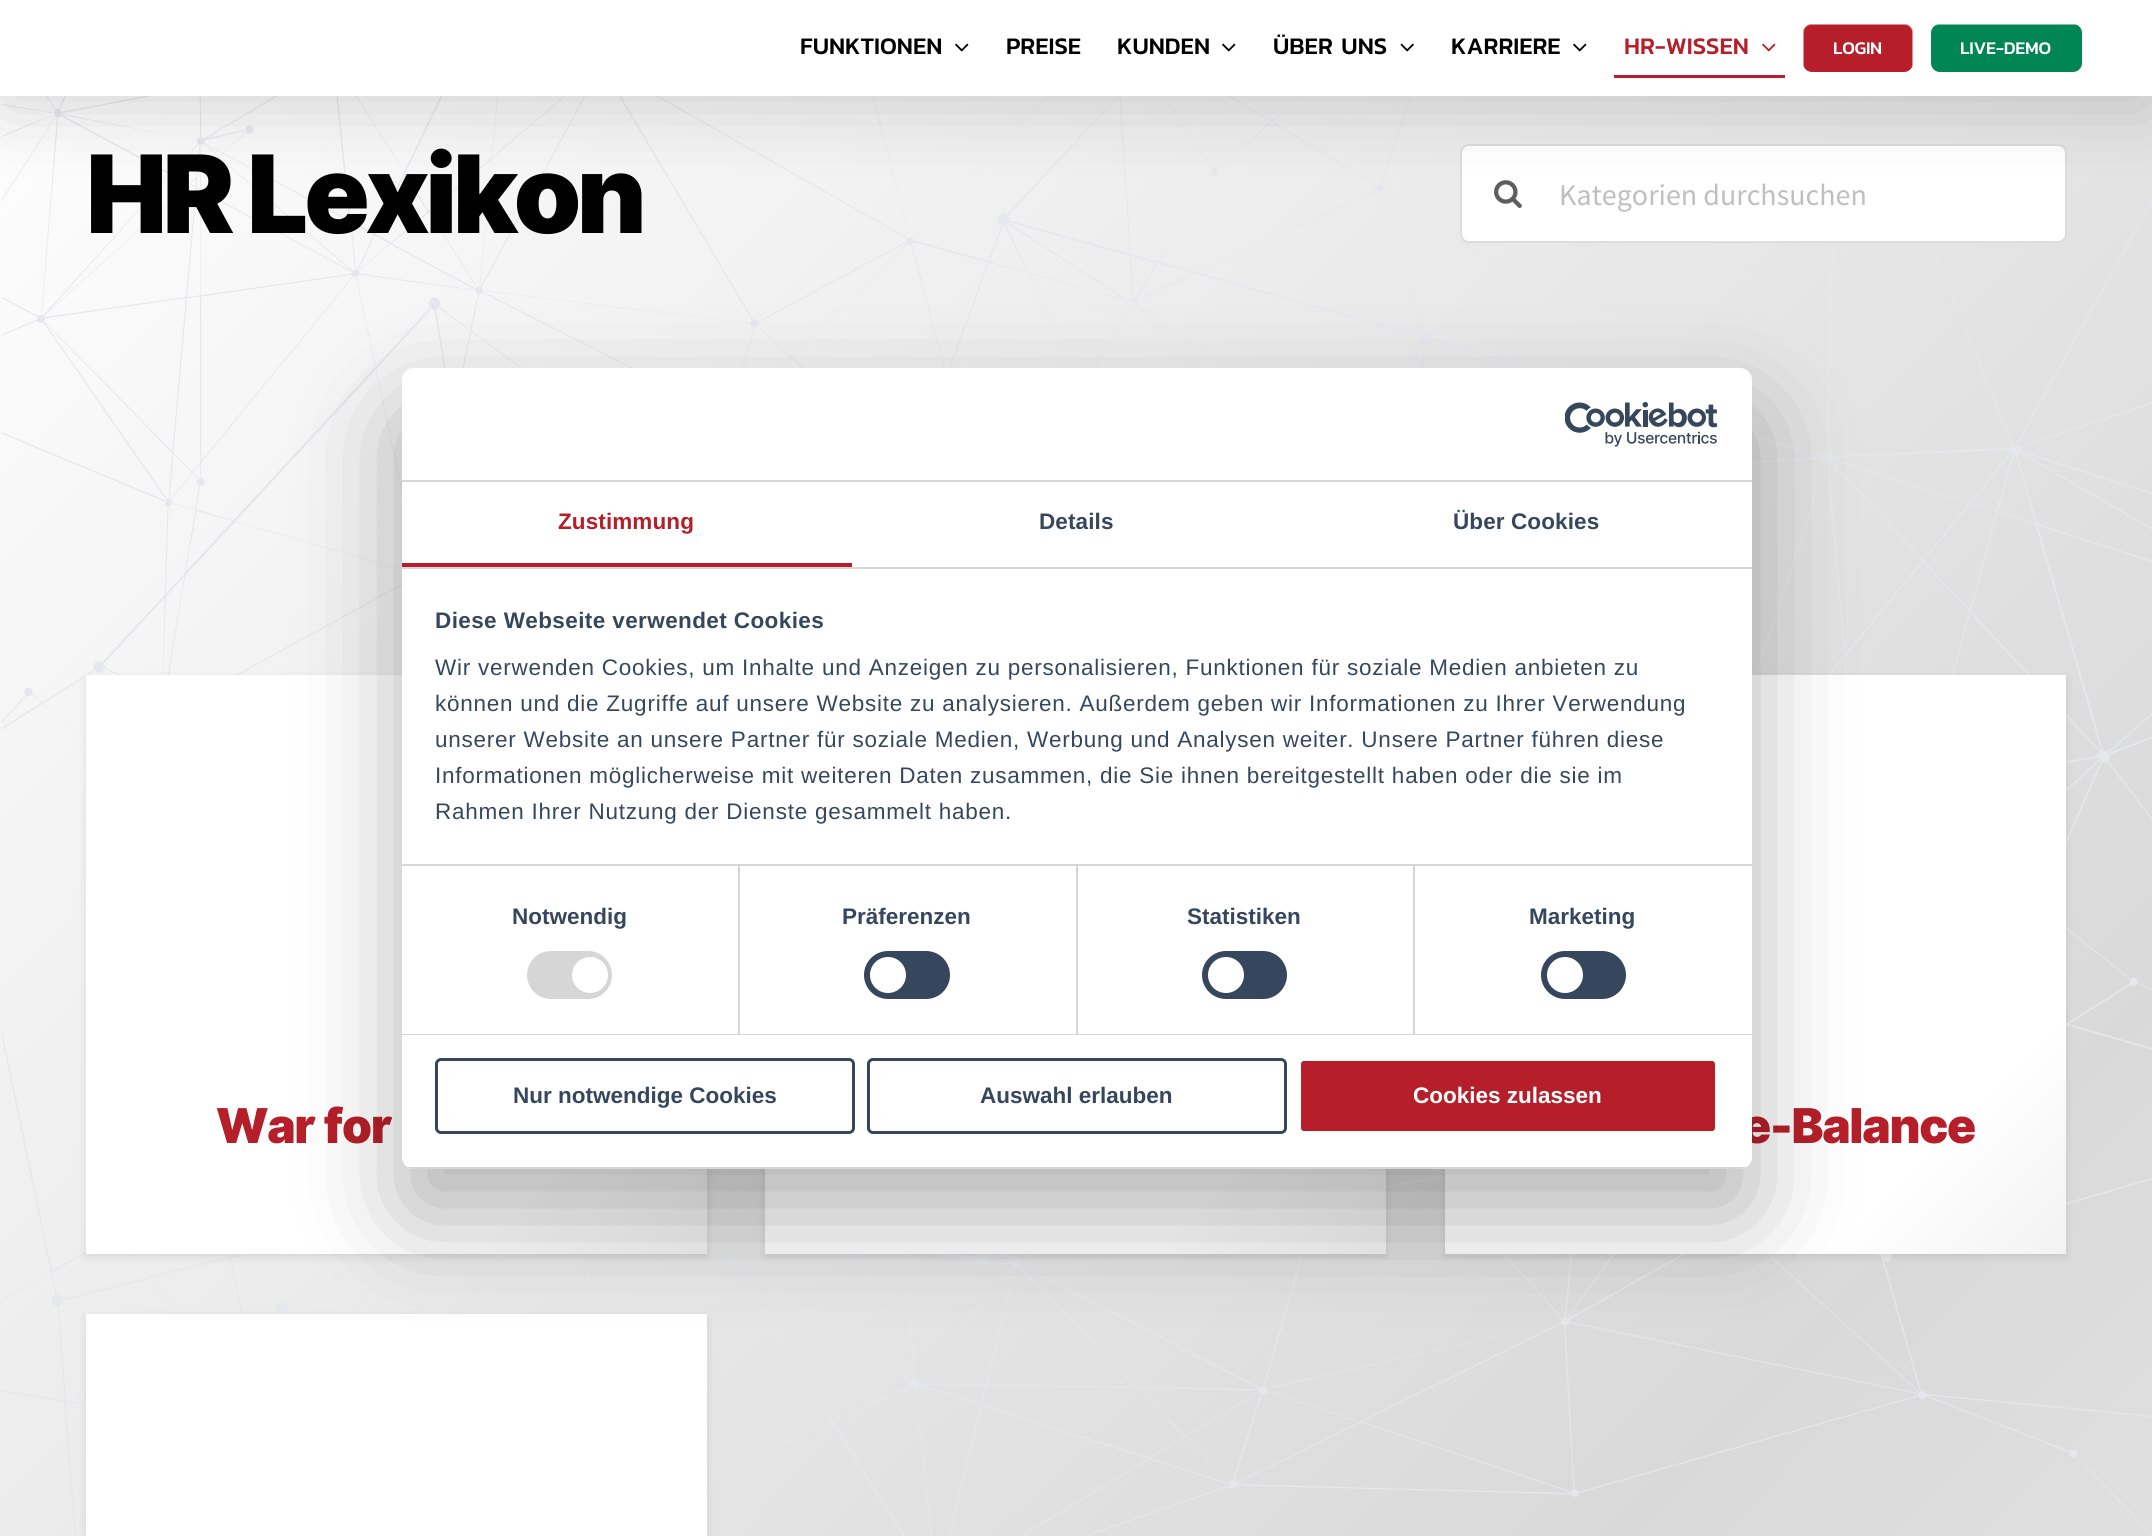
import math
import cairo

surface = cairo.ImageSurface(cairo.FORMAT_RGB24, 2152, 1536)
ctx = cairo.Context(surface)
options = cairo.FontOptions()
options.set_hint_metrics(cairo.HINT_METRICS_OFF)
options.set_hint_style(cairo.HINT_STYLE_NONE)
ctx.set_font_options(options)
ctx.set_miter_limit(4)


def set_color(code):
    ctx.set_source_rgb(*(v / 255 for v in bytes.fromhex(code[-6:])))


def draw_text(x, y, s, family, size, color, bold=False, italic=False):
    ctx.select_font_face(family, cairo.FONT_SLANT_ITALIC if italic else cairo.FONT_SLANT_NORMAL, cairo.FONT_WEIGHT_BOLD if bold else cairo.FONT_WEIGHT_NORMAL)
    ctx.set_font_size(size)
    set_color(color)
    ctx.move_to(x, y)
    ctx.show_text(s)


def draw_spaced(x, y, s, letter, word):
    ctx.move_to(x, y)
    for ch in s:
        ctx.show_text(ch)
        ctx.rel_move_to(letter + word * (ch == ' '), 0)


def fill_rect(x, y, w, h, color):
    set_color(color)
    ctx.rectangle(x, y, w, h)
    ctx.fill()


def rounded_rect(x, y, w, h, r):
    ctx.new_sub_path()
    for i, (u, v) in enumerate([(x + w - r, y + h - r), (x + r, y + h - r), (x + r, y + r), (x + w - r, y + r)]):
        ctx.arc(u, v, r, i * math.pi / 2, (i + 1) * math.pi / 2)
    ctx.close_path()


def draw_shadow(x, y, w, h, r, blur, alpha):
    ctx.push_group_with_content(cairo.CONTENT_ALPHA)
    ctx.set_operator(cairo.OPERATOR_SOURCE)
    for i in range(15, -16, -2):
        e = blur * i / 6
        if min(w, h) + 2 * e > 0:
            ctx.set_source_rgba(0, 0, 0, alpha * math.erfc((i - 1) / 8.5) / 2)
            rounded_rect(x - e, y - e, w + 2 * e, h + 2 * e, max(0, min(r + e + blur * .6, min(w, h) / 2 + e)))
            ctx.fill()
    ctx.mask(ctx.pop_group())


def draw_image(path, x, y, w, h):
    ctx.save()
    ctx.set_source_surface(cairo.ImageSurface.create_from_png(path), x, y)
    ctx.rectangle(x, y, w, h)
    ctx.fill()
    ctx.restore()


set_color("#ffffff")
ctx.paint()
draw_image("assets/img1.png", 0, 96, 2152, 1440)
set_color("#ffffff")
rounded_rect(1461, 145, 605, 97, 8)
ctx.fill_preserve()
set_color("#dcdcdc")
ctx.stroke()
draw_image("assets/img5.png", 1494, 180, 28, 28)
set_color("#000000")
draw_shadow(3, 18, 2147, 90, 0, 37.5, 0.15)
fill_rect(0, 0, 2152, 96, "#ffffff")
draw_text(800, 54, "FUNKTIONEN", "Kanit Medium", 24, "#000000")
draw_image("assets/img2.png", 955, 43, 14, 9)
draw_text(1006, 54, "PREISE", "Kanit Medium", 24, "#000000")
draw_text(1117, 54, "KUNDEN", "Kanit Medium", 24, "#000000")
draw_image("assets/img2.png", 1222, 43, 14, 9)
draw_text(1273, 54, "ÜBER UNS", "Kanit Medium", 24, "#000000")
draw_image("assets/img3.png", 1400, 43, 14, 9)
draw_text(1451, 54, "KARRIERE", "Kanit Medium", 24, "#000000")
draw_image("assets/img2.png", 1573, 43, 14, 9)
draw_text(1624, 54, "HR-WISSEN", "Kanit Medium", 24, "#b61f29")
draw_image("assets/img4.png", 1762, 43, 14, 9)
fill_rect(1614, 75, 171, 3, "#b61f29")
rounded_rect(1803, 24, 110, 48, 9)
ctx.fill()
ctx.set_font_size(18)
set_color("#ffffff")
draw_spaced(1833, 54, "LOGIN", -0.25, 0)
ctx.set_source_rgba(1, 1, 1, 0.5)
ctx.new_path()
ctx.move_to(1811, 25)
ctx.line_to(1905, 25)
ctx.curve_to(1909, 25, 1912, 28, 1912, 32)
ctx.line_to(1912, 65)
ctx.curve_to(1912, 66, 1912, 68, 1911, 69)
ctx.curve_to(1912, 67, 1913, 65, 1913, 63)
ctx.line_to(1913, 33)
ctx.curve_to(1913, 28, 1909, 24, 1904, 24)
ctx.line_to(1812, 24)
ctx.curve_to(1807, 24, 1803, 28, 1803, 33)
ctx.line_to(1803, 63)
ctx.curve_to(1803, 65, 1804, 67, 1805, 69)
ctx.curve_to(1804, 68, 1804, 66, 1804, 65)
ctx.line_to(1804, 32)
ctx.curve_to(1804, 28, 1807, 25, 1811, 25)
ctx.close_path()
ctx.fill()
set_color("#008554")
rounded_rect(1931, 24, 151, 48, 9)
ctx.fill()
ctx.set_source_rgba(1, 1, 1, 0.5)
ctx.new_path()
ctx.move_to(1938, 25)
ctx.line_to(2075, 25)
ctx.curve_to(2076, 25, 2078, 25, 2079, 26)
ctx.curve_to(2077, 25, 2075, 24, 2073, 24)
ctx.line_to(1940, 24)
ctx.curve_to(1938, 24, 1936, 25, 1934, 26)
ctx.close_path()
ctx.fill()
set_color("#ffffff")
draw_spaced(1960, 54, "LIVE-DEMO", -0.25, 0)
ctx.select_font_face("Inter Black")
ctx.set_font_size(108)
set_color("#000000")
draw_spaced(86, 233, "HR Lexikon", -4.5, 0)
draw_text(1559, 205, "Kategorien durchsuchen", "Source Sans Pro", 30, "#bfbfbf")
set_color("#000000")
draw_shadow(86, 678, 621, 579, 0, 4, 0.1)
gradient = cairo.LinearGradient(96, 665, 696, 1265)
gradient.add_color_stop_rgba(0, 1, 1, 1, 1)
gradient.add_color_stop_rgba(0.8, 1, 1, 1, 1)
gradient.add_color_stop_rgba(1, 0.953, 0.949, 0.949, 1)
ctx.set_source(gradient)
ctx.rectangle(86, 675, 621, 579)
ctx.fill()
ctx.select_font_face("Inter Black")
ctx.set_font_size(48)
set_color("#b61f29")
draw_spaced(216, 1143, "War for", -1.25, 0)
set_color("#000000")
draw_shadow(765, 678, 621, 579, 0, 4, 0.1)
gradient = cairo.LinearGradient(776, 665, 1376, 1265)
gradient.add_color_stop_rgba(0, 1, 1, 1, 1)
gradient.add_color_stop_rgba(0.8, 1, 1, 1, 1)
gradient.add_color_stop_rgba(1, 0.953, 0.949, 0.949, 1)
ctx.set_source(gradient)
ctx.rectangle(765, 1169, 621, 85)
ctx.fill()
set_color("#000000")
draw_shadow(1445, 678, 621, 579, 0, 4, 0.1)
gradient = cairo.LinearGradient(1455, 665, 2055, 1265)
gradient.add_color_stop_rgba(0, 1, 1, 1, 1)
gradient.add_color_stop_rgba(0.8, 1, 1, 1, 1)
gradient.add_color_stop_rgba(1, 0.953, 0.949, 0.949, 1)
ctx.set_source(gradient)
ctx.rectangle(1445, 675, 621, 579)
ctx.fill()
set_color("#b61f29")
draw_spaced(1742, 1143, "e-Balance", -1.25, 0)
set_color("#000000")
draw_shadow(86, 1317, 621, 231, 0, 4, 0.1)
gradient = cairo.LinearGradient(95, 1304, 697, 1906)
gradient.add_color_stop_rgba(0, 1, 1, 1, 1)
gradient.add_color_stop_rgba(0.8, 1, 1, 1, 1)
gradient.add_color_stop_rgba(1, 0.953, 0.949, 0.949, 1)
ctx.set_source(gradient)
ctx.rectangle(86, 1314, 621, 222)
ctx.fill()
set_color("#000000")
draw_shadow(402, 416, 1350, 801, 12, 51, 0.3)
set_color("#ffffff")
rounded_rect(402, 368, 1350, 801, 12)
ctx.fill()
fill_rect(402, 480, 1350, 2, "#d6d6d6")
draw_image("assets/img6.png", 1565, 402, 153, 45)
fill_rect(402, 567, 1350, 2, "#d6d6d6")
fill_rect(402, 563, 450, 4, "#b61f29")
ctx.select_font_face("Liberation Sans", cairo.FONT_SLANT_NORMAL, cairo.FONT_WEIGHT_BOLD)
ctx.set_font_size(22.5)
draw_spaced(558, 529, "Zustimmung", 0.1, 0)
set_color("#36475d")
draw_spaced(1039, 529, "Details", 0.1, 0)
draw_spaced(1453, 529, "Über Cookies", 0.1, 0)
fill_rect(402, 864, 1350, 2, "#d6d6d6")
set_color("#36475d")
draw_spaced(435, 628, "Diese Webseite verwendet Cookies", 0.4, 0)
ctx.select_font_face("Liberation Sans")
draw_spaced(435, 675, "Wir verwenden Cookies, um Inhalte und Anzeigen zu personalisieren, Funktionen für soziale Medien anbieten zu", 0.75, 0)
draw_spaced(435, 711, "können und die Zugriffe auf unsere Website zu analysieren. Außerdem geben wir Informationen zu Ihrer Verwendung", 0.75, 0)
draw_spaced(435, 747, "unserer Website an unsere Partner für soziale Medien, Werbung und Analysen weiter. Unsere Partner führen diese", 0.75, 0)
draw_spaced(435, 783, "Informationen möglicherweise mit weiteren Daten zusammen, die Sie ihnen bereitgestellt haben oder die sie im", 0.75, 0)
draw_spaced(435, 819, "Rahmen Ihrer Nutzung der Dienste gesammelt haben.", 0.75, 0)
fill_rect(402, 1034, 1350, 1, "#d6d6d6")
fill_rect(738, 866, 2, 168, "#d6d6d6")
draw_text(512, 924, "Notwendig", "Liberation Sans", 22.5, "#36475d", bold=True)
set_color("#d6d6d6")
rounded_rect(527, 951, 85, 48, 24)
ctx.fill()
set_color("#ffffff")
ctx.arc(590, 975, 18, 0, 2 * math.pi)
ctx.fill()
fill_rect(1076, 866, 2, 168, "#d6d6d6")
draw_text(842, 924, "Präferenzen", "Liberation Sans", 22.5, "#36475d", bold=True)
rounded_rect(864, 951, 86, 48, 24)
ctx.fill()
set_color("#ffffff")
ctx.arc(888, 975, 18, 0, 2 * math.pi)
ctx.fill()
fill_rect(1413, 866, 2, 168, "#d6d6d6")
draw_text(1187, 924, "Statistiken", "Liberation Sans", 22.5, "#36475d", bold=True)
rounded_rect(1202, 951, 85, 48, 24)
ctx.fill()
set_color("#ffffff")
ctx.arc(1226, 975, 18, 0, 2 * math.pi)
ctx.fill()
draw_text(1529, 924, "Marketing", "Liberation Sans", 22.5, "#36475d", bold=True)
rounded_rect(1541, 951, 85, 48, 24)
ctx.fill()
set_color("#ffffff")
ctx.arc(1565, 975, 18, 0, 2 * math.pi)
ctx.fill()
ctx.save()
rounded_rect(402, 368, 1350, 801, 12)
ctx.clip()
fill_rect(402, 1167, 1350, 2, "#d6d6d6")
ctx.restore()
rounded_rect(436.5, 1059.5, 417, 73, 4.5)
set_color("#36475d")
ctx.set_line_width(3)
ctx.stroke()
draw_text(513, 1103, "Nur notwendige Cookies", "Liberation Sans", 22.5, "#36475d", bold=True)
rounded_rect(868.5, 1059.5, 417, 73, 4.5)
ctx.stroke()
draw_text(980, 1103, "Auswahl erlauben", "Liberation Sans", 22.5, "#36475d", bold=True)
set_color("#b61f29")
rounded_rect(1299.5, 1059.5, 417, 73, 4.5)
ctx.fill_preserve()
set_color("#ffffff")
ctx.stroke()
draw_text(1413, 1103, "Cookies zulassen", "Liberation Sans", 22.5, "#ffffff", bold=True)
surface.write_to_png("output.png")
